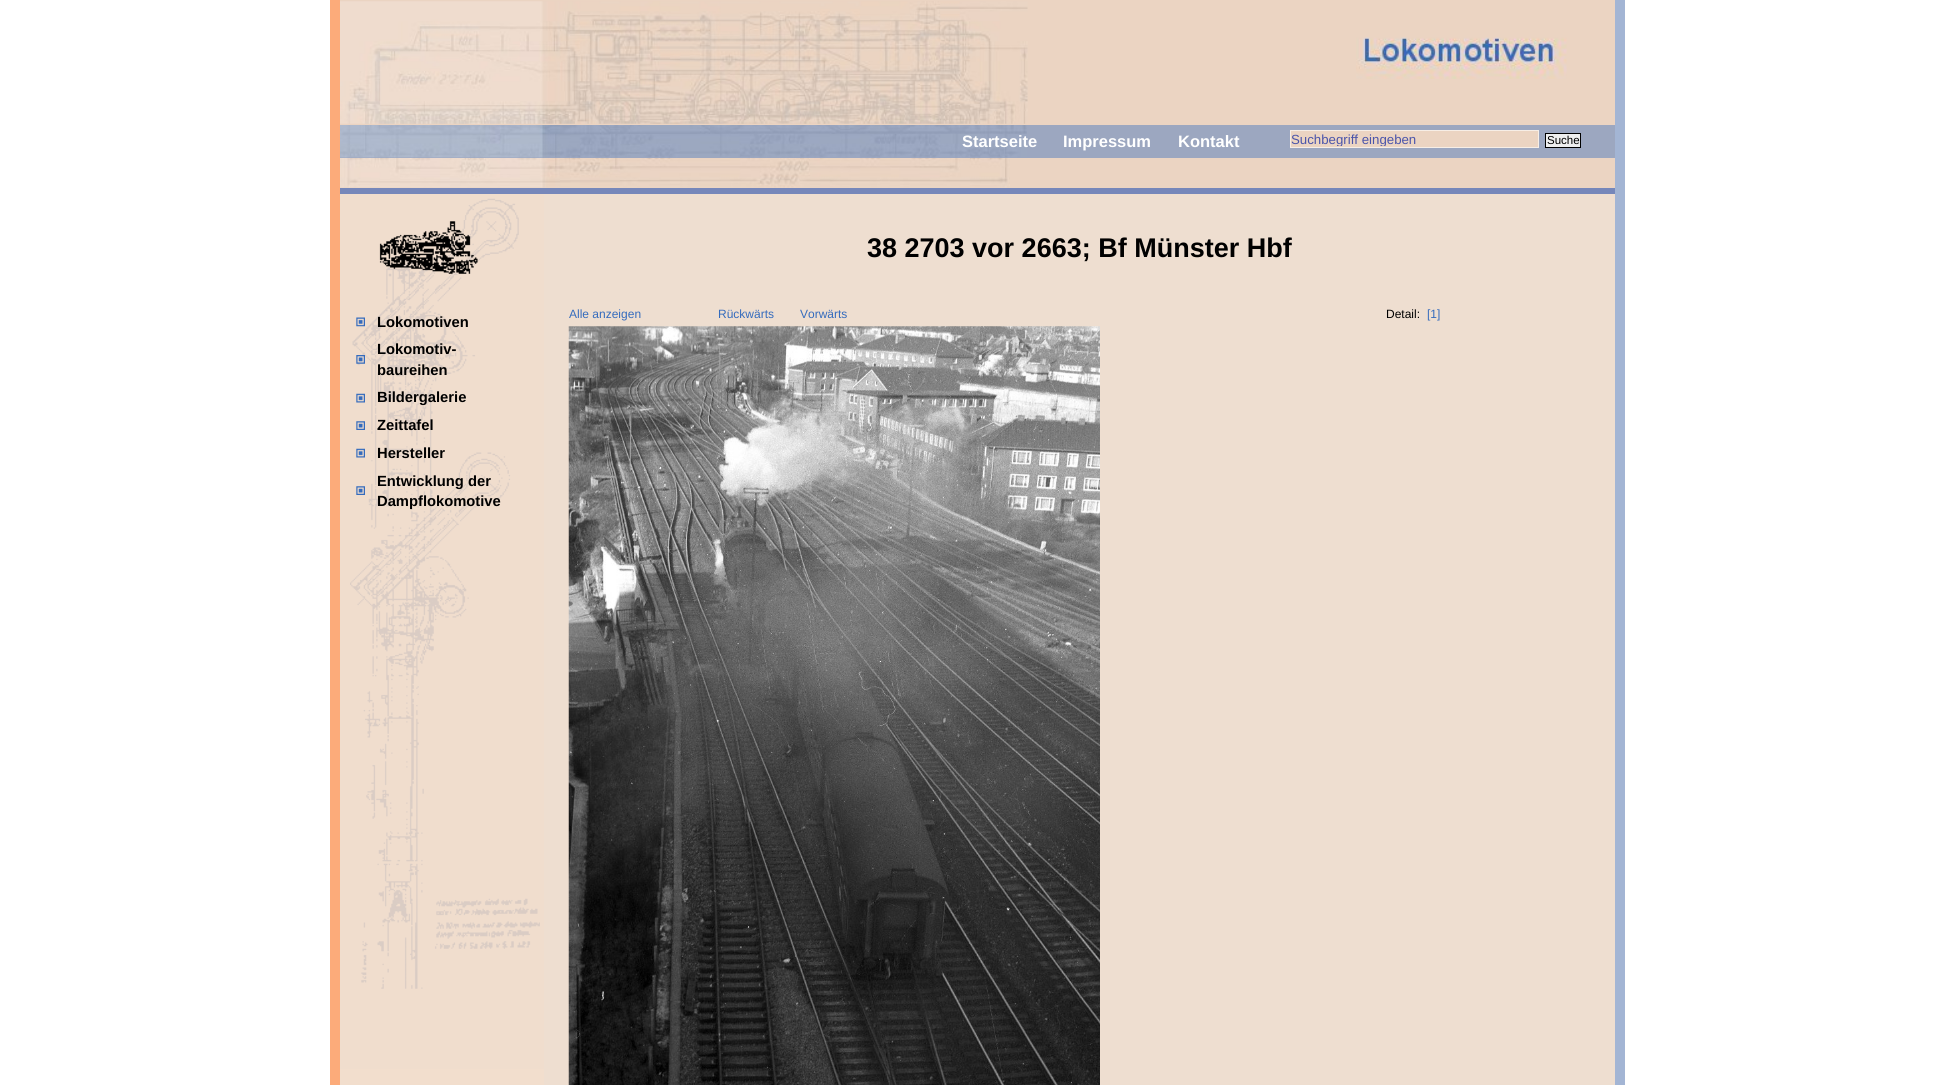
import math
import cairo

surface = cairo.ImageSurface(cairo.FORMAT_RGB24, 1955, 1085)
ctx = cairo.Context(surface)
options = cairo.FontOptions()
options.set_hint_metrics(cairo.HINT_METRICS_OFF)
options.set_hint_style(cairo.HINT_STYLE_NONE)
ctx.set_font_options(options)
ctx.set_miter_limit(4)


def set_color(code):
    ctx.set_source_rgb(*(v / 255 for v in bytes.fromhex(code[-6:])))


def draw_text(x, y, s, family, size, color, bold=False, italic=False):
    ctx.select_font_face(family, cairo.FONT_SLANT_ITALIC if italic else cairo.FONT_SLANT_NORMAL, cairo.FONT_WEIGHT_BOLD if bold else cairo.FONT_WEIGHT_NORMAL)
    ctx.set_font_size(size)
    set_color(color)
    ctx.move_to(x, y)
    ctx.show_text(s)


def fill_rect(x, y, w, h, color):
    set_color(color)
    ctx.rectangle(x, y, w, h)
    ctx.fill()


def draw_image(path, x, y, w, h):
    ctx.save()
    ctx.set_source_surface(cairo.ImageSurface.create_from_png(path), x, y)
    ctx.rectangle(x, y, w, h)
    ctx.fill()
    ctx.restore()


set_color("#ffffff")
ctx.paint()
fill_rect(1615, 0, 10, 1085, "#a3b5d4")
fill_rect(330, 0, 10, 1085, "#fcab7a")
fill_rect(340, 0, 1275, 125, "#ebd4c2")
draw_image("assets/img1.png", 340, 1, 688, 123)
draw_image("assets/img2.png", 1356, 37, 211, 42)
fill_rect(340, 125, 1275, 33, "#9ca7c0")
draw_image("assets/img3.png", 340, 125, 687, 33)
draw_text(962, 147, "Startseite", "Liberation Sans", 16.5, "#ffffff", bold=True)
draw_text(1063, 147, "Impressum", "Liberation Sans", 16.5, "#ffffff", bold=True)
draw_text(1178, 147, "Kontakt", "Liberation Sans", 16.5, "#ffffff", bold=True)
set_color("#ebd4c2")
ctx.rectangle(1290.5, 130.5, 248, 17)
ctx.fill_preserve()
set_color("#f7eee6")
ctx.set_line_width(1)
ctx.stroke()
ctx.save()
ctx.rectangle(1291, 131, 247, 15)
ctx.clip()
draw_text(1291, 144, "Suchbegriff eingeben", "Liberation Sans", 13.25, "#4a54aa")
ctx.restore()
set_color("#efefef")
ctx.rectangle(1545.5, 133.5, 35, 14)
ctx.fill_preserve()
set_color("#000000")
ctx.stroke()
draw_text(1547, 144, "Suche", "Liberation Sans", 11.5, "#000000")
fill_rect(340, 158, 1275, 30, "#ebd4c2")
fill_rect(340, 188, 1275, 6, "#7687ba")
draw_image("assets/img4.png", 340, 158, 670, 30)
fill_rect(544, 194, 1071, 891, "#eeded0")
fill_rect(340, 1069, 204, 16, "#f2decd")
draw_text(867, 257, "38 2703 vor 2663; Bf Münster Hbf", "Liberation Sans", 27, "#000000", bold=True)
draw_text(569, 318, "Alle anzeigen", "Liberation Sans", 12, "#346bbd")
draw_text(718, 318, "Rückwärts", "Liberation Sans", 12, "#346bbd")
draw_text(800, 318, "Vorwärts", "Liberation Sans", 12, "#346bbd")
draw_text(1386, 318, "Detail:", "Liberation Sans", 12, "#000000")
draw_text(1427, 318, "[1]", "Liberation Sans", 12, "#346bbd")
draw_image("assets/img5.png", 568, 326, 532, 759)
fill_rect(340, 194, 204, 875, "#f0ddcd")
draw_image("assets/img6.png", 350, 198, 190, 791)
draw_image("assets/img7.png", 379, 221, 99, 53)
draw_image("assets/img8.png", 356, 317, 9, 10)
draw_text(377, 327, "Lokomotiven", "Liberation Sans", 14.75, "#000000", bold=True)
draw_image("assets/img9.png", 356, 355, 9, 9)
draw_text(377, 354, "Lokomotiv-", "Liberation Sans", 14.75, "#000000", bold=True)
draw_text(377, 375, "baureihen", "Liberation Sans", 14.75, "#000000", bold=True)
draw_image("assets/img10.png", 356, 393, 9, 10)
draw_text(377, 402, "Bildergalerie", "Liberation Sans", 14.75, "#000000", bold=True)
draw_image("assets/img11.png", 356, 421, 9, 9)
draw_text(377, 430, "Zeittafel", "Liberation Sans", 14.75, "#000000", bold=True)
draw_image("assets/img10.png", 356, 448, 9, 10)
draw_text(377, 458, "Hersteller", "Liberation Sans", 14.75, "#000000", bold=True)
draw_image("assets/img11.png", 356, 486, 9, 9)
draw_text(377, 486, "Entwicklung der", "Liberation Sans", 14.75, "#000000", bold=True)
draw_text(377, 506, "Dampflokomotive", "Liberation Sans", 14.75, "#000000", bold=True)
surface.write_to_png("output.png")
